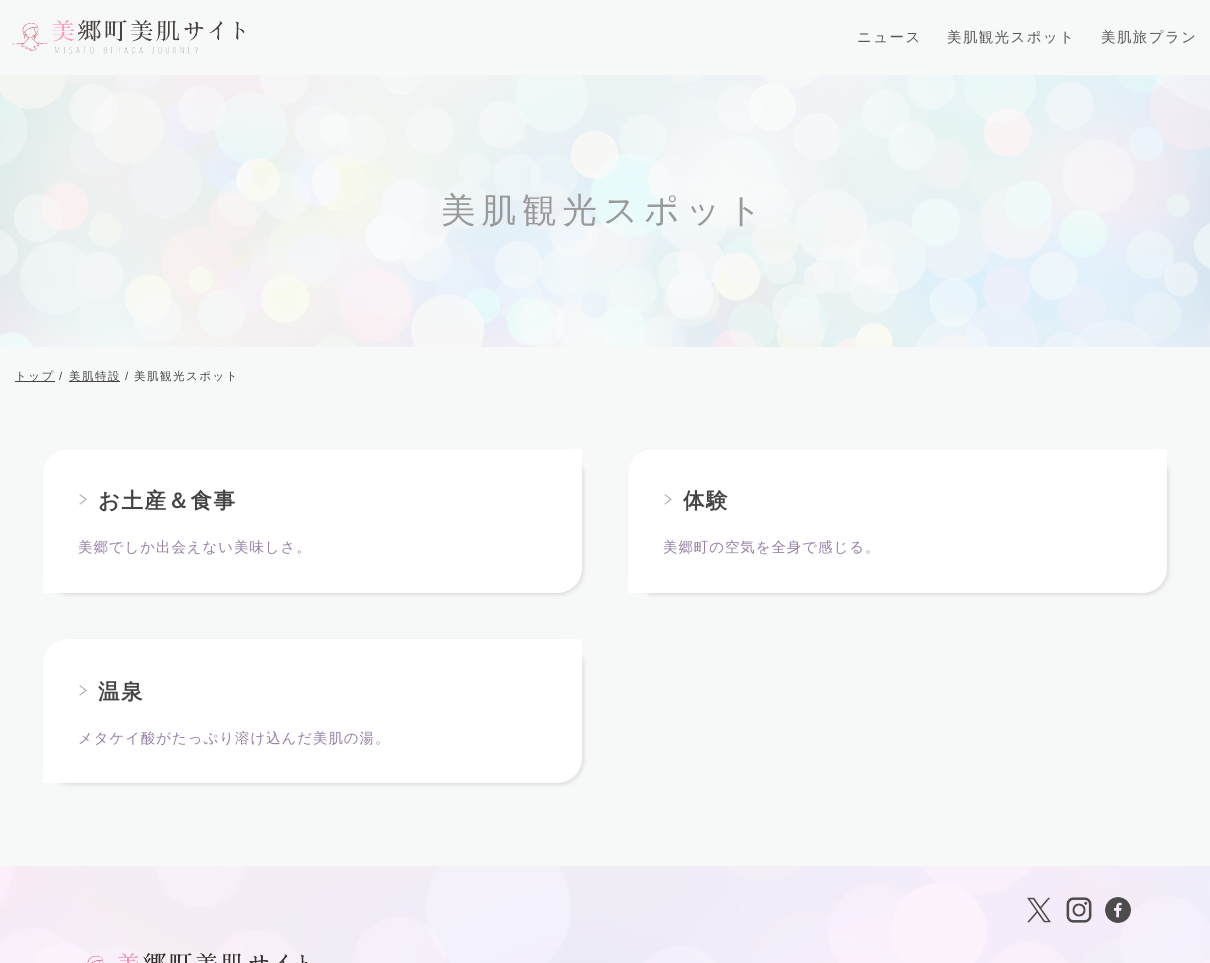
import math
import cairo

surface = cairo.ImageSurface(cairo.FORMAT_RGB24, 1210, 963)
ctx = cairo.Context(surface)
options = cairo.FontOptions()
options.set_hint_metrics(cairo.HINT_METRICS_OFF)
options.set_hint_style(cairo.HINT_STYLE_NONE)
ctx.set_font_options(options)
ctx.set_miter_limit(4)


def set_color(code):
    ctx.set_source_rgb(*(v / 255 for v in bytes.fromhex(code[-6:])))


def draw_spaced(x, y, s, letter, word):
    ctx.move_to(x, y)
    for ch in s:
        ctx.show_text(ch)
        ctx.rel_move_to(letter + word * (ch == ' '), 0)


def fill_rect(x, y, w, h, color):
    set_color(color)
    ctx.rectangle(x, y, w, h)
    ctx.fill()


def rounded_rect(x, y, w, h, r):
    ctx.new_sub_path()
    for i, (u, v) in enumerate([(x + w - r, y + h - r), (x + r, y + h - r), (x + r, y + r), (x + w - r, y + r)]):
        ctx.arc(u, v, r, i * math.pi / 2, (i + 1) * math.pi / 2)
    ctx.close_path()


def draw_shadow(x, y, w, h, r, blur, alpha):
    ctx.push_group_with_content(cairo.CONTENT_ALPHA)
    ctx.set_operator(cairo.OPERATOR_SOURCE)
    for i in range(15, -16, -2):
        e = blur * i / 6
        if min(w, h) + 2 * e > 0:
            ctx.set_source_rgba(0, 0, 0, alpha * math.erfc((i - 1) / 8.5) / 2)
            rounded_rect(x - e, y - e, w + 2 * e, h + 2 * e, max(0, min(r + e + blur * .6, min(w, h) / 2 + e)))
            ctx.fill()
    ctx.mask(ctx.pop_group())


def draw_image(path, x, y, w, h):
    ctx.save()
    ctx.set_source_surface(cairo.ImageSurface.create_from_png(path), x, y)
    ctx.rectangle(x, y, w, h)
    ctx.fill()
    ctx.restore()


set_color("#f7f8f8")
ctx.paint()
draw_image("assets/img1.png", 12, 20, 233, 34)
ctx.select_font_face("WenQuanYi Zen Hei Medium")
ctx.set_font_size(14.4)
set_color("#565656")
draw_spaced(857, 42, "ニュース", 1.5, 0)
draw_spaced(947, 42, "美肌観光スポット", 1.5, 0)
draw_spaced(1101, 42, "美肌旅プラン", 1.5, 0)
draw_image("assets/img2.png", 0, 75, 1210, 272)
ctx.set_font_size(34.5)
set_color("#999999")
draw_spaced(441, 222, "美肌観光スポット", 6, 0)
fill_rect(15, 381, 40, 1, "#444444")
ctx.set_font_size(11.5)
draw_spaced(15, 380, "トップ", 1.5, 0)
ctx.select_font_face("Liberation Sans")
draw_spaced(59, 380, "/", 1.5, 0)
fill_rect(69, 381, 51, 1, "#444444")
ctx.select_font_face("WenQuanYi Zen Hei Medium")
draw_spaced(69, 380, "美肌特設", 1.5, 0)
ctx.select_font_face("Liberation Sans")
draw_spaced(125, 380, "/", 1.5, 0)
ctx.select_font_face("WenQuanYi Zen Hei Medium")
draw_spaced(134, 380, "美肌観光スポット", 1.5, 0)
set_color("#dddddd")
draw_shadow(45, 451, 539, 144, 25, 2, 1)
set_color("#ffffff")
ctx.new_path()
ctx.move_to(68, 449)
ctx.line_to(582, 449)
ctx.line_to(582, 568)
ctx.curve_to(582, 582, 571, 593, 557, 593)
ctx.line_to(43, 593)
ctx.line_to(43, 474)
ctx.curve_to(43, 460, 54, 449, 68, 449)
ctx.close_path()
ctx.fill()
draw_image("assets/img3.png", 79, 494, 8, 11)
ctx.select_font_face("WenQuanYi Zen Hei", cairo.FONT_SLANT_NORMAL, cairo.FONT_WEIGHT_BOLD)
ctx.set_font_size(21.5)
set_color("#444444")
draw_spaced(98, 508, "お土産＆食事", 1.5, 0)
ctx.select_font_face("WenQuanYi Zen Hei Medium")
ctx.set_font_size(14.4)
set_color("#957ea6")
draw_spaced(78, 552, "美郷でしか出会えない美味しさ。", 1, 0)
set_color("#dddddd")
draw_shadow(630, 451, 539, 144, 25, 2, 1)
set_color("#ffffff")
ctx.new_path()
ctx.move_to(653, 449)
ctx.line_to(1167, 449)
ctx.line_to(1167, 568)
ctx.curve_to(1167, 582, 1156, 593, 1142, 593)
ctx.line_to(628, 593)
ctx.line_to(628, 474)
ctx.curve_to(628, 460, 639, 449, 653, 449)
ctx.close_path()
ctx.fill()
draw_image("assets/img3.png", 664, 494, 8, 11)
ctx.select_font_face("WenQuanYi Zen Hei", cairo.FONT_SLANT_NORMAL, cairo.FONT_WEIGHT_BOLD)
ctx.set_font_size(21.5)
set_color("#444444")
draw_spaced(683, 508, "体験", 1.5, 0)
ctx.select_font_face("WenQuanYi Zen Hei Medium")
ctx.set_font_size(14.4)
set_color("#957ea6")
draw_spaced(663, 552, "美郷町の空気を全身で感じる。", 1, 0)
set_color("#dddddd")
draw_shadow(45, 641, 539, 144, 25, 2, 1)
set_color("#ffffff")
ctx.new_path()
ctx.move_to(68, 639)
ctx.line_to(582, 639)
ctx.line_to(582, 758)
ctx.curve_to(582, 772, 571, 783, 557, 783)
ctx.line_to(43, 783)
ctx.line_to(43, 664)
ctx.curve_to(43, 650, 54, 639, 68, 639)
ctx.close_path()
ctx.fill()
draw_image("assets/img3.png", 79, 685, 8, 11)
ctx.select_font_face("WenQuanYi Zen Hei", cairo.FONT_SLANT_NORMAL, cairo.FONT_WEIGHT_BOLD)
ctx.set_font_size(21.5)
set_color("#444444")
draw_spaced(98, 699, "温泉", 1.5, 0)
ctx.select_font_face("WenQuanYi Zen Hei Medium")
ctx.set_font_size(14.4)
set_color("#957ea6")
draw_spaced(78, 743, "メタケイ酸がたっぷり溶け込んだ美肌の湯。", 1, 0)
fill_rect(0, 866, 1210, 97, "#ffeaff")
draw_image("assets/img4.png", 0, 866, 1210, 97)
draw_image("assets/img5.png", 1027, 897, 24, 26)
draw_image("assets/img6.png", 1066, 897, 26, 26)
draw_image("assets/img7.png", 1105, 897, 26, 26)
draw_image("assets/img8.png", 87, 953, 221, 10)
surface.write_to_png("output.png")
